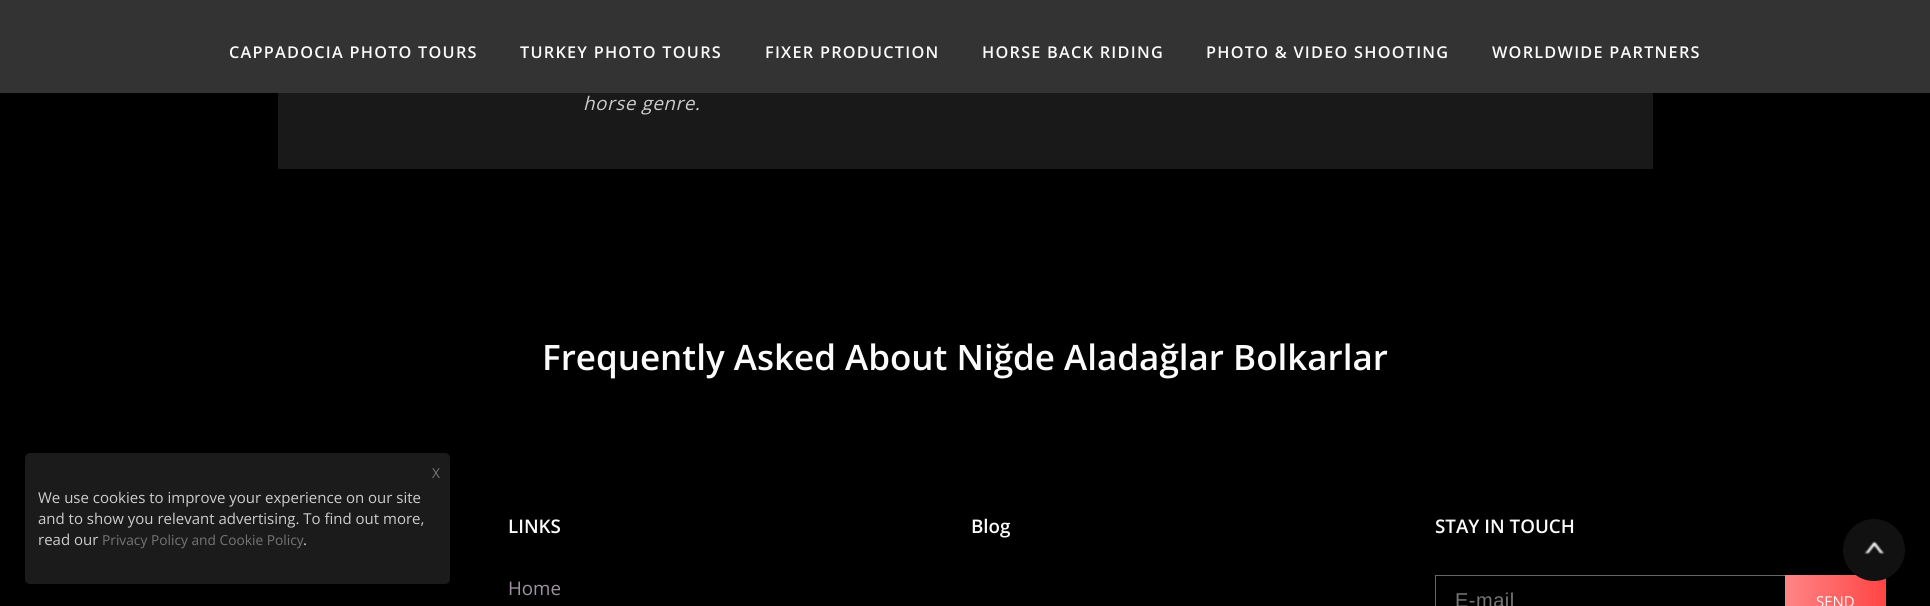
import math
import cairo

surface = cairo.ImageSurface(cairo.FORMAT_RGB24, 1930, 606)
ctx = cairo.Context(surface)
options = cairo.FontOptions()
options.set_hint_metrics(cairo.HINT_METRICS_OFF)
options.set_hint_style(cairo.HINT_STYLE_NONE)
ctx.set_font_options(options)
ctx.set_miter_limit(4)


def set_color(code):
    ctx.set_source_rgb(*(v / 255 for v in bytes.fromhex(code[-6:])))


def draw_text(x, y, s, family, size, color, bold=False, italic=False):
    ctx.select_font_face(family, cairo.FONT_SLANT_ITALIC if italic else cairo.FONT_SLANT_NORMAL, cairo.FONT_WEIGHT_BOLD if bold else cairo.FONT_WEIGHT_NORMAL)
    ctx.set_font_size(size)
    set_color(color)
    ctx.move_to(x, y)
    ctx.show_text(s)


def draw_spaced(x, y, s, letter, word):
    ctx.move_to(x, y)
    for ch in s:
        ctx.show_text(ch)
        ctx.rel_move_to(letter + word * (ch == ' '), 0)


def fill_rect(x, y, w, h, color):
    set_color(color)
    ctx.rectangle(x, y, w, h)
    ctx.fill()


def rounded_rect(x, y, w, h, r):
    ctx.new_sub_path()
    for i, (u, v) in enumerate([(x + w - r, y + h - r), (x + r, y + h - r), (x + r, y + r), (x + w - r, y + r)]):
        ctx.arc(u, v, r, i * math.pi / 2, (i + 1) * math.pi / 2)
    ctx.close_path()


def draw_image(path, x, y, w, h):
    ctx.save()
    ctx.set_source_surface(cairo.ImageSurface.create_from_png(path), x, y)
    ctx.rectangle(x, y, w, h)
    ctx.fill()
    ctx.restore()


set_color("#000000")
ctx.paint()
fill_rect(0, 0, 1930, 93, "#333333")
ctx.select_font_face("Open Sans SemiBold")
ctx.set_font_size(16.25)
set_color("#fbfbfb")
draw_spaced(229, 58, "CAPPADOCIA PHOTO TOURS", 1.25, 0)
draw_spaced(520, 58, "TURKEY PHOTO TOURS", 1.25, 0)
draw_spaced(765, 58, "FIXER PRODUCTION", 1.25, 0)
draw_spaced(982, 58, "HORSE BACK RIDING", 1.25, 0)
draw_spaced(1206, 58, "PHOTO & VIDEO SHOOTING", 1.25, 0)
draw_spaced(1492, 58, "WORLDWIDE PARTNERS", 1.25, 0)
fill_rect(278, 93, 1375, 76, "#191919")
ctx.select_font_face("Open Sans", cairo.FONT_SLANT_ITALIC)
ctx.set_font_size(18.75)
set_color("#cdcdcd")
draw_spaced(583, 110, "horse genre.", 0.6, 0)
draw_text(542, 370, "Frequently Asked About Niğde Aladağlar Bolkarlar", "Open Sans SemiBold", 35, "#fbfbfb")
ctx.set_source_rgba(0.133, 0.133, 0.133, 0.8)
rounded_rect(25, 453, 425, 131, 5)
ctx.fill()
draw_text(432, 478, "X", "Open Sans", 13.75, "#757575")
draw_text(38, 503, "We use cookies to improve your experience on our site", "Open Sans", 15, "#cdcdcd")
draw_text(38, 524, "and to show you relevant advertising. To find out more,", "Open Sans", 15, "#cdcdcd")
draw_text(38, 545, "read our", "Open Sans", 15, "#cdcdcd")
draw_text(102, 545, "Privacy Policy and Cookie Policy", "Open Sans", 13.75, "#757575")
draw_text(303, 545, ".", "Open Sans", 15, "#cdcdcd")
draw_text(508, 533, "LINKS", "Open Sans SemiBold", 18.75, "#fbfbfb")
draw_text(508, 595, "Home", "Open Sans", 18.75, "#9d93a1")
draw_text(971, 533, "Blog", "Open Sans SemiBold", 18.75, "#fbfbfb")
draw_text(1435, 533, "STAY IN TOUCH", "Open Sans SemiBold", 18.75, "#fbfbfb")
ctx.rectangle(1435.5, 575.5, 450, 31)
set_color("#666666")
ctx.set_line_width(1)
ctx.stroke()
ctx.select_font_face("Liberation Sans")
ctx.set_font_size(20)
set_color("#757575")
draw_spaced(1455, 607, "E-mail", 0.5, 0)
gradient = cairo.LinearGradient(1785, 600, 1886, 600)
gradient.add_color_stop_rgba(0, 1, 0.522, 0.522, 1)
gradient.add_color_stop_rgba(1, 1, 0.267, 0.267, 1)
ctx.set_source(gradient)
ctx.rectangle(1785, 575, 101, 31)
ctx.fill()
draw_text(1816, 607, "SEND", "Open Sans", 15, "#fbfbfb")
set_color("#111111")
ctx.new_path()
ctx.arc(1874, 550, 31, 0, 2 * math.pi)
ctx.fill()
draw_image("assets/img1.png", 1864, 541, 21, 14)
surface.write_to_png("output.png")
